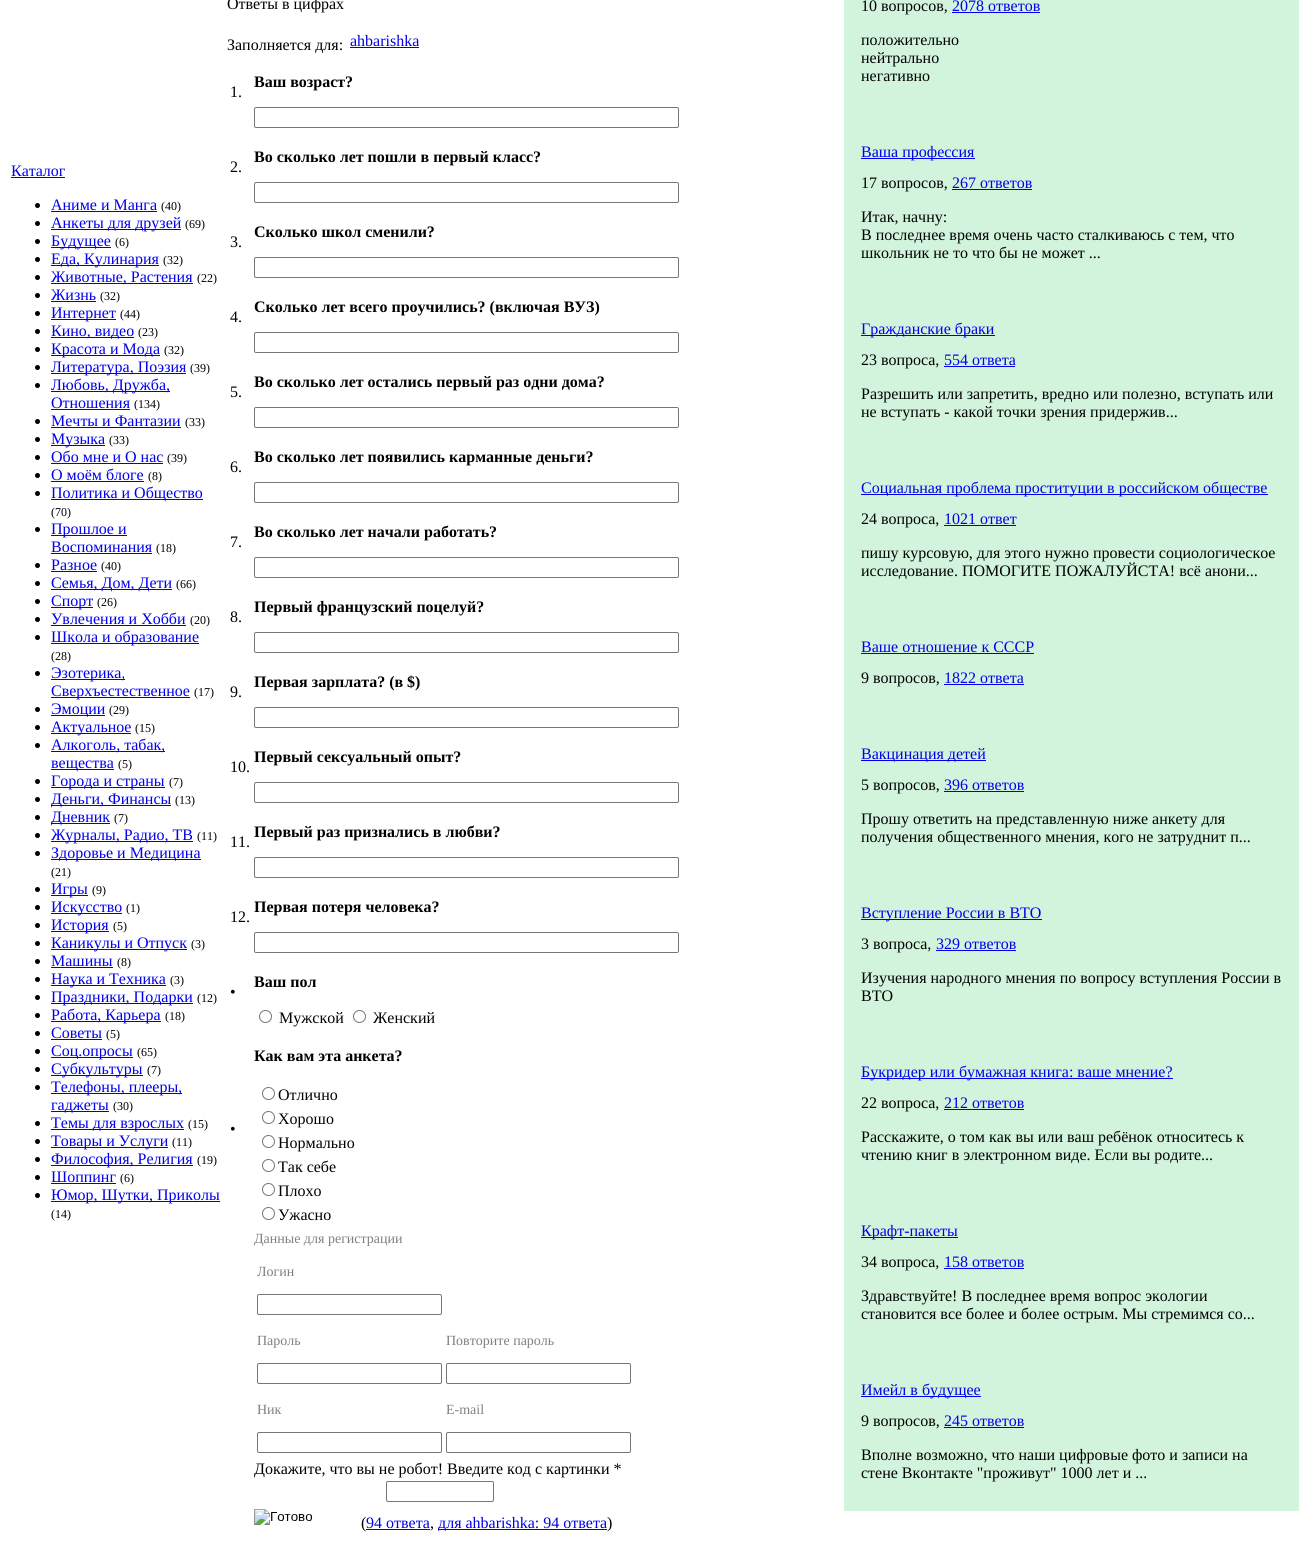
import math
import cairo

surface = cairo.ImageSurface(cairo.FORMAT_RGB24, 1313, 1554)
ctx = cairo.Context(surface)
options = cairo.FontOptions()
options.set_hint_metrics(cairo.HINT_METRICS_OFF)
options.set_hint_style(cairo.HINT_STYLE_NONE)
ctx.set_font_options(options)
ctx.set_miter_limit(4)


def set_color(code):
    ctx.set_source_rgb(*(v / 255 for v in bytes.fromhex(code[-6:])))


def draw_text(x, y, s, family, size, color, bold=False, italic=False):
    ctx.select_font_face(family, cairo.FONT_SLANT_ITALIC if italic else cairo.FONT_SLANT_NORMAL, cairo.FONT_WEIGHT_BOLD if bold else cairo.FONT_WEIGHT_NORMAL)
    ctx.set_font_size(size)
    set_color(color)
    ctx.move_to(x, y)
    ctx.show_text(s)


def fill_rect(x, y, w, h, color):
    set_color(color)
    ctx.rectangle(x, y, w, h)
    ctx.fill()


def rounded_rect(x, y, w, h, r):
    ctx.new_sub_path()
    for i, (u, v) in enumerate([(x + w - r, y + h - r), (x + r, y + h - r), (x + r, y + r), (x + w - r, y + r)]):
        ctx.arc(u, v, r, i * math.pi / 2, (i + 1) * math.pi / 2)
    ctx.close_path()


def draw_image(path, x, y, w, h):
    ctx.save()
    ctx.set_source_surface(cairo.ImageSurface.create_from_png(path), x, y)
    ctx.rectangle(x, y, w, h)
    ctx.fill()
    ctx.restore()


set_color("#ffffff")
ctx.paint()
draw_text(11, 176, "Каталог", "Liberation Serif", 16, "#0000ee")
fill_rect(11, 177, 54, 1, "#0000ee")
set_color("#000000")
ctx.new_path()
ctx.arc(37.5, 205.5, 2.5, 0, 2 * math.pi)
ctx.fill()
draw_text(51, 210, "Аниме и Манга", "Liberation Serif", 16, "#0000ee")
fill_rect(51, 211, 106, 1, "#0000ee")
draw_text(161, 210, "(40)", "Liberation Serif", 12, "#000000")
ctx.new_path()
ctx.arc(37.5, 223.5, 2.5, 0, 2 * math.pi)
ctx.fill()
fill_rect(51, 229, 130, 1, "#0000ee")
draw_text(51, 228, "Анкеты для друзей", "Liberation Serif", 16, "#0000ee")
draw_text(185, 228, "(69)", "Liberation Serif", 12, "#000000")
ctx.new_path()
ctx.arc(37.5, 241.5, 2.5, 0, 2 * math.pi)
ctx.fill()
fill_rect(51, 247, 60, 1, "#0000ee")
draw_text(51, 246, "Будущее", "Liberation Serif", 16, "#0000ee")
draw_text(115, 246, "(6)", "Liberation Serif", 12, "#000000")
ctx.new_path()
ctx.arc(37.5, 259.5, 2.5, 0, 2 * math.pi)
ctx.fill()
fill_rect(51, 265, 108, 1, "#0000ee")
draw_text(51, 264, "Еда, Кулинария", "Liberation Serif", 16, "#0000ee")
draw_text(163, 264, "(32)", "Liberation Serif", 12, "#000000")
ctx.new_path()
ctx.arc(37.5, 277.5, 2.5, 0, 2 * math.pi)
ctx.fill()
fill_rect(51, 283, 142, 1, "#0000ee")
draw_text(51, 282, "Животные, Растения", "Liberation Serif", 16, "#0000ee")
draw_text(197, 282, "(22)", "Liberation Serif", 12, "#000000")
ctx.new_path()
ctx.arc(37.5, 295.5, 2.5, 0, 2 * math.pi)
ctx.fill()
draw_text(51, 300, "Жизнь", "Liberation Serif", 16, "#0000ee")
fill_rect(51, 301, 45, 1, "#0000ee")
draw_text(100, 300, "(32)", "Liberation Serif", 12, "#000000")
ctx.new_path()
ctx.arc(37.5, 313.5, 2.5, 0, 2 * math.pi)
ctx.fill()
fill_rect(51, 319, 65, 1, "#0000ee")
draw_text(51, 318, "Интернет", "Liberation Serif", 16, "#0000ee")
draw_text(120, 318, "(44)", "Liberation Serif", 12, "#000000")
ctx.new_path()
ctx.arc(37.5, 331.5, 2.5, 0, 2 * math.pi)
ctx.fill()
fill_rect(51, 337, 83, 1, "#0000ee")
draw_text(51, 336, "Кино, видео", "Liberation Serif", 16, "#0000ee")
draw_text(138, 336, "(23)", "Liberation Serif", 12, "#000000")
ctx.new_path()
ctx.arc(37.5, 349.5, 2.5, 0, 2 * math.pi)
ctx.fill()
fill_rect(51, 355, 109, 1, "#0000ee")
draw_text(51, 354, "Красота и Мода", "Liberation Serif", 16, "#0000ee")
draw_text(164, 354, "(32)", "Liberation Serif", 12, "#000000")
ctx.new_path()
ctx.arc(37.5, 367.5, 2.5, 0, 2 * math.pi)
ctx.fill()
fill_rect(51, 373, 135, 1, "#0000ee")
draw_text(51, 372, "Литература, Поэзия", "Liberation Serif", 16, "#0000ee")
draw_text(190, 372, "(39)", "Liberation Serif", 12, "#000000")
ctx.new_path()
ctx.arc(37.5, 385.5, 2.5, 0, 2 * math.pi)
ctx.fill()
fill_rect(51, 391, 119, 1, "#0000ee")
draw_text(51, 390, "Любовь, Дружба,", "Liberation Serif", 16, "#0000ee")
draw_text(51, 408, "Отношения", "Liberation Serif", 16, "#0000ee")
fill_rect(51, 409, 79, 1, "#0000ee")
draw_text(134, 408, "(134)", "Liberation Serif", 12, "#000000")
ctx.new_path()
ctx.arc(37.5, 421.5, 2.5, 0, 2 * math.pi)
ctx.fill()
draw_text(51, 426, "Мечты и Фантазии", "Liberation Serif", 16, "#0000ee")
fill_rect(51, 427, 130, 1, "#0000ee")
draw_text(185, 426, "(33)", "Liberation Serif", 12, "#000000")
ctx.new_path()
ctx.arc(37.5, 439.5, 2.5, 0, 2 * math.pi)
ctx.fill()
fill_rect(51, 445, 54, 1, "#0000ee")
draw_text(51, 444, "Музыка", "Liberation Serif", 16, "#0000ee")
draw_text(109, 444, "(33)", "Liberation Serif", 12, "#000000")
ctx.new_path()
ctx.arc(37.5, 457.5, 2.5, 0, 2 * math.pi)
ctx.fill()
draw_text(51, 462, "Обо мне и О нас", "Liberation Serif", 16, "#0000ee")
fill_rect(51, 463, 112, 1, "#0000ee")
draw_text(167, 462, "(39)", "Liberation Serif", 12, "#000000")
ctx.new_path()
ctx.arc(37.5, 475.5, 2.5, 0, 2 * math.pi)
ctx.fill()
draw_text(51, 480, "О моём блоге", "Liberation Serif", 16, "#0000ee")
fill_rect(51, 481, 93, 1, "#0000ee")
draw_text(148, 480, "(8)", "Liberation Serif", 12, "#000000")
ctx.new_path()
ctx.arc(37.5, 493.5, 2.5, 0, 2 * math.pi)
ctx.fill()
fill_rect(51, 499, 152, 1, "#0000ee")
draw_text(51, 498, "Политика и Общество", "Liberation Serif", 16, "#0000ee")
draw_text(51, 516, "(70)", "Liberation Serif", 12, "#000000")
ctx.new_path()
ctx.arc(37.5, 529.5, 2.5, 0, 2 * math.pi)
ctx.fill()
fill_rect(51, 535, 76, 1, "#0000ee")
draw_text(51, 534, "Прошлое и", "Liberation Serif", 16, "#0000ee")
draw_text(51, 552, "Воспоминания", "Liberation Serif", 16, "#0000ee")
fill_rect(51, 553, 101, 1, "#0000ee")
draw_text(156, 552, "(18)", "Liberation Serif", 12, "#000000")
ctx.new_path()
ctx.arc(37.5, 565.5, 2.5, 0, 2 * math.pi)
ctx.fill()
draw_text(51, 570, "Разное", "Liberation Serif", 16, "#0000ee")
fill_rect(51, 571, 46, 1, "#0000ee")
draw_text(101, 570, "(40)", "Liberation Serif", 12, "#000000")
ctx.new_path()
ctx.arc(37.5, 583.5, 2.5, 0, 2 * math.pi)
ctx.fill()
fill_rect(51, 589, 121, 1, "#0000ee")
draw_text(51, 588, "Семья, Дом, Дети", "Liberation Serif", 16, "#0000ee")
draw_text(176, 588, "(66)", "Liberation Serif", 12, "#000000")
ctx.new_path()
ctx.arc(37.5, 601.5, 2.5, 0, 2 * math.pi)
ctx.fill()
fill_rect(51, 607, 42, 1, "#0000ee")
draw_text(51, 606, "Спорт", "Liberation Serif", 16, "#0000ee")
draw_text(97, 606, "(26)", "Liberation Serif", 12, "#000000")
ctx.new_path()
ctx.arc(37.5, 619.5, 2.5, 0, 2 * math.pi)
ctx.fill()
draw_text(51, 624, "Увлечения и Хобби", "Liberation Serif", 16, "#0000ee")
fill_rect(51, 625, 135, 1, "#0000ee")
draw_text(190, 624, "(20)", "Liberation Serif", 12, "#000000")
ctx.new_path()
ctx.arc(37.5, 637.5, 2.5, 0, 2 * math.pi)
ctx.fill()
fill_rect(51, 643, 148, 1, "#0000ee")
draw_text(51, 642, "Школа и образование", "Liberation Serif", 16, "#0000ee")
draw_text(51, 660, "(28)", "Liberation Serif", 12, "#000000")
ctx.new_path()
ctx.arc(37.5, 673.5, 2.5, 0, 2 * math.pi)
ctx.fill()
fill_rect(51, 679, 74, 1, "#0000ee")
draw_text(51, 678, "Эзотерика,", "Liberation Serif", 16, "#0000ee")
fill_rect(51, 697, 139, 1, "#0000ee")
draw_text(51, 696, "Сверхъестественное", "Liberation Serif", 16, "#0000ee")
draw_text(194, 696, "(17)", "Liberation Serif", 12, "#000000")
ctx.new_path()
ctx.arc(37.5, 709.5, 2.5, 0, 2 * math.pi)
ctx.fill()
fill_rect(51, 715, 54, 1, "#0000ee")
draw_text(51, 714, "Эмоции", "Liberation Serif", 16, "#0000ee")
draw_text(109, 714, "(29)", "Liberation Serif", 12, "#000000")
ctx.new_path()
ctx.arc(37.5, 727.5, 2.5, 0, 2 * math.pi)
ctx.fill()
fill_rect(51, 733, 80, 1, "#0000ee")
draw_text(51, 732, "Актуальное", "Liberation Serif", 16, "#0000ee")
draw_text(135, 732, "(15)", "Liberation Serif", 12, "#000000")
ctx.new_path()
ctx.arc(37.5, 745.5, 2.5, 0, 2 * math.pi)
ctx.fill()
fill_rect(51, 751, 114, 1, "#0000ee")
draw_text(51, 750, "Алкоголь, табак,", "Liberation Serif", 16, "#0000ee")
fill_rect(51, 769, 63, 1, "#0000ee")
draw_text(51, 768, "вещества", "Liberation Serif", 16, "#0000ee")
draw_text(118, 768, "(5)", "Liberation Serif", 12, "#000000")
ctx.new_path()
ctx.arc(37.5, 781.5, 2.5, 0, 2 * math.pi)
ctx.fill()
fill_rect(51, 787, 114, 1, "#0000ee")
draw_text(51, 786, "Города и страны", "Liberation Serif", 16, "#0000ee")
draw_text(169, 786, "(7)", "Liberation Serif", 12, "#000000")
ctx.new_path()
ctx.arc(37.5, 799.5, 2.5, 0, 2 * math.pi)
ctx.fill()
fill_rect(51, 805, 120, 1, "#0000ee")
draw_text(51, 804, "Деньги, Финансы", "Liberation Serif", 16, "#0000ee")
draw_text(175, 804, "(13)", "Liberation Serif", 12, "#000000")
ctx.new_path()
ctx.arc(37.5, 817.5, 2.5, 0, 2 * math.pi)
ctx.fill()
fill_rect(51, 823, 59, 1, "#0000ee")
draw_text(51, 822, "Дневник", "Liberation Serif", 16, "#0000ee")
draw_text(114, 822, "(7)", "Liberation Serif", 12, "#000000")
ctx.new_path()
ctx.arc(37.5, 835.5, 2.5, 0, 2 * math.pi)
ctx.fill()
fill_rect(51, 841, 142, 1, "#0000ee")
draw_text(51, 840, "Журналы, Радио, ТВ", "Liberation Serif", 16, "#0000ee")
draw_text(197, 840, "(11)", "Liberation Serif", 12, "#000000")
ctx.new_path()
ctx.arc(37.5, 853.5, 2.5, 0, 2 * math.pi)
ctx.fill()
fill_rect(51, 859, 150, 1, "#0000ee")
draw_text(51, 858, "Здоровье и Медицина", "Liberation Serif", 16, "#0000ee")
draw_text(51, 876, "(21)", "Liberation Serif", 12, "#000000")
ctx.new_path()
ctx.arc(37.5, 889.5, 2.5, 0, 2 * math.pi)
ctx.fill()
fill_rect(51, 895, 37, 1, "#0000ee")
draw_text(51, 894, "Игры", "Liberation Serif", 16, "#0000ee")
draw_text(92, 894, "(9)", "Liberation Serif", 12, "#000000")
ctx.new_path()
ctx.arc(37.5, 907.5, 2.5, 0, 2 * math.pi)
ctx.fill()
fill_rect(51, 913, 71, 1, "#0000ee")
draw_text(51, 912, "Искусство", "Liberation Serif", 16, "#0000ee")
draw_text(126, 912, "(1)", "Liberation Serif", 12, "#000000")
ctx.new_path()
ctx.arc(37.5, 925.5, 2.5, 0, 2 * math.pi)
ctx.fill()
fill_rect(51, 931, 58, 1, "#0000ee")
draw_text(51, 930, "История", "Liberation Serif", 16, "#0000ee")
draw_text(113, 930, "(5)", "Liberation Serif", 12, "#000000")
ctx.new_path()
ctx.arc(37.5, 943.5, 2.5, 0, 2 * math.pi)
ctx.fill()
fill_rect(51, 949, 136, 1, "#0000ee")
draw_text(51, 948, "Каникулы и Отпуск", "Liberation Serif", 16, "#0000ee")
draw_text(191, 948, "(3)", "Liberation Serif", 12, "#000000")
ctx.new_path()
ctx.arc(37.5, 961.5, 2.5, 0, 2 * math.pi)
ctx.fill()
draw_text(51, 966, "Машины", "Liberation Serif", 16, "#0000ee")
fill_rect(51, 967, 62, 1, "#0000ee")
draw_text(117, 966, "(8)", "Liberation Serif", 12, "#000000")
ctx.new_path()
ctx.arc(37.5, 979.5, 2.5, 0, 2 * math.pi)
ctx.fill()
fill_rect(51, 985, 115, 1, "#0000ee")
draw_text(51, 984, "Наука и Техника", "Liberation Serif", 16, "#0000ee")
draw_text(170, 984, "(3)", "Liberation Serif", 12, "#000000")
ctx.new_path()
ctx.arc(37.5, 997.5, 2.5, 0, 2 * math.pi)
ctx.fill()
fill_rect(51, 1003, 142, 1, "#0000ee")
draw_text(51, 1002, "Праздники, Подарки", "Liberation Serif", 16, "#0000ee")
draw_text(197, 1002, "(12)", "Liberation Serif", 12, "#000000")
ctx.new_path()
ctx.arc(37.5, 1015.5, 2.5, 0, 2 * math.pi)
ctx.fill()
fill_rect(51, 1021, 110, 1, "#0000ee")
draw_text(51, 1020, "Работа, Карьера", "Liberation Serif", 16, "#0000ee")
draw_text(165, 1020, "(18)", "Liberation Serif", 12, "#000000")
ctx.new_path()
ctx.arc(37.5, 1033.5, 2.5, 0, 2 * math.pi)
ctx.fill()
draw_text(51, 1038, "Советы", "Liberation Serif", 16, "#0000ee")
fill_rect(51, 1039, 51, 1, "#0000ee")
draw_text(106, 1038, "(5)", "Liberation Serif", 12, "#000000")
ctx.new_path()
ctx.arc(37.5, 1051.5, 2.5, 0, 2 * math.pi)
ctx.fill()
fill_rect(51, 1057, 82, 1, "#0000ee")
draw_text(51, 1056, "Соц.опросы", "Liberation Serif", 16, "#0000ee")
draw_text(137, 1056, "(65)", "Liberation Serif", 12, "#000000")
ctx.new_path()
ctx.arc(37.5, 1069.5, 2.5, 0, 2 * math.pi)
ctx.fill()
fill_rect(51, 1075, 92, 1, "#0000ee")
draw_text(51, 1074, "Субкультуры", "Liberation Serif", 16, "#0000ee")
draw_text(147, 1074, "(7)", "Liberation Serif", 12, "#000000")
ctx.new_path()
ctx.arc(37.5, 1087.5, 2.5, 0, 2 * math.pi)
ctx.fill()
fill_rect(51, 1093, 131, 1, "#0000ee")
draw_text(51, 1092, "Телефоны, плееры,", "Liberation Serif", 16, "#0000ee")
fill_rect(51, 1111, 58, 1, "#0000ee")
draw_text(51, 1110, "гаджеты", "Liberation Serif", 16, "#0000ee")
draw_text(113, 1110, "(30)", "Liberation Serif", 12, "#000000")
ctx.new_path()
ctx.arc(37.5, 1123.5, 2.5, 0, 2 * math.pi)
ctx.fill()
fill_rect(51, 1129, 133, 1, "#0000ee")
draw_text(51, 1128, "Темы для взрослых", "Liberation Serif", 16, "#0000ee")
draw_text(188, 1128, "(15)", "Liberation Serif", 12, "#000000")
ctx.new_path()
ctx.arc(37.5, 1141.5, 2.5, 0, 2 * math.pi)
ctx.fill()
fill_rect(51, 1147, 117, 1, "#0000ee")
draw_text(51, 1146, "Товары и Услуги", "Liberation Serif", 16, "#0000ee")
draw_text(172, 1146, "(11)", "Liberation Serif", 12, "#000000")
ctx.new_path()
ctx.arc(37.5, 1159.5, 2.5, 0, 2 * math.pi)
ctx.fill()
fill_rect(51, 1165, 142, 1, "#0000ee")
draw_text(51, 1164, "Философия, Религия", "Liberation Serif", 16, "#0000ee")
draw_text(197, 1164, "(19)", "Liberation Serif", 12, "#000000")
ctx.new_path()
ctx.arc(37.5, 1177.5, 2.5, 0, 2 * math.pi)
ctx.fill()
draw_text(51, 1182, "Шоппинг", "Liberation Serif", 16, "#0000ee")
fill_rect(51, 1183, 65, 1, "#0000ee")
draw_text(120, 1182, "(6)", "Liberation Serif", 12, "#000000")
ctx.new_path()
ctx.arc(37.5, 1195.5, 2.5, 0, 2 * math.pi)
ctx.fill()
fill_rect(51, 1201, 169, 1, "#0000ee")
draw_text(51, 1200, "Юмор, Шутки, Приколы", "Liberation Serif", 16, "#0000ee")
draw_text(51, 1218, "(14)", "Liberation Serif", 12, "#000000")
draw_text(227, 9, "Ответы в цифрах", "Liberation Serif", 16, "#000000")
draw_text(227, 50, "Заполняется для:", "Liberation Serif", 16, "#000000")
draw_text(350, 46, "ahbarishka", "Liberation Serif", 16, "#0000ee")
fill_rect(350, 47, 69, 1, "#0000ee")
draw_text(230, 97, "1.", "Liberation Serif", 16, "#000000")
draw_text(254, 87, "Ваш возраст?", "Liberation Serif", 16, "#000000", bold=True)
rounded_rect(254.5, 107.5, 424, 20, 1.5)
set_color("#767676")
ctx.set_line_width(1)
ctx.stroke()
draw_text(230, 172, "2.", "Liberation Serif", 16, "#000000")
draw_text(254, 162, "Во сколько лет пошли в первый класс?", "Liberation Serif", 16, "#000000", bold=True)
rounded_rect(254.5, 182.5, 424, 20, 1.5)
set_color("#767676")
ctx.stroke()
draw_text(254, 237, "Сколько школ сменили?", "Liberation Serif", 16, "#000000", bold=True)
rounded_rect(254.5, 257.5, 424, 20, 1.5)
set_color("#767676")
ctx.stroke()
draw_text(230, 247, "3.", "Liberation Serif", 16, "#000000")
draw_text(230, 322, "4.", "Liberation Serif", 16, "#000000")
draw_text(254, 312, "Сколько лет всего проучились? (включая ВУЗ)", "Liberation Serif", 16, "#000000", bold=True)
rounded_rect(254.5, 332.5, 424, 20, 1.5)
set_color("#767676")
ctx.stroke()
draw_text(230, 397, "5.", "Liberation Serif", 16, "#000000")
draw_text(254, 387, "Во сколько лет остались первый раз одни дома?", "Liberation Serif", 16, "#000000", bold=True)
rounded_rect(254.5, 407.5, 424, 20, 1.5)
set_color("#767676")
ctx.stroke()
draw_text(230, 472, "6.", "Liberation Serif", 16, "#000000")
draw_text(254, 462, "Во сколько лет появились карманные деньги?", "Liberation Serif", 16, "#000000", bold=True)
rounded_rect(254.5, 482.5, 424, 20, 1.5)
set_color("#767676")
ctx.stroke()
draw_text(230, 547, "7.", "Liberation Serif", 16, "#000000")
draw_text(254, 537, "Во сколько лет начали работать?", "Liberation Serif", 16, "#000000", bold=True)
rounded_rect(254.5, 557.5, 424, 20, 1.5)
set_color("#767676")
ctx.stroke()
draw_text(230, 622, "8.", "Liberation Serif", 16, "#000000")
draw_text(254, 612, "Первый французский поцелуй?", "Liberation Serif", 16, "#000000", bold=True)
rounded_rect(254.5, 632.5, 424, 20, 1.5)
set_color("#767676")
ctx.stroke()
draw_text(230, 697, "9.", "Liberation Serif", 16, "#000000")
draw_text(254, 687, "Первая зарплата? (в $)", "Liberation Serif", 16, "#000000", bold=True)
rounded_rect(254.5, 707.5, 424, 20, 1.5)
set_color("#767676")
ctx.stroke()
draw_text(230, 772, "10.", "Liberation Serif", 16, "#000000")
draw_text(254, 762, "Первый сексуальный опыт?", "Liberation Serif", 16, "#000000", bold=True)
rounded_rect(254.5, 782.5, 424, 20, 1.5)
set_color("#767676")
ctx.stroke()
draw_text(230, 847, "11.", "Liberation Serif", 16, "#000000")
draw_text(254, 837, "Первый раз признались в любви?", "Liberation Serif", 16, "#000000", bold=True)
rounded_rect(254.5, 857.5, 424, 20, 1.5)
set_color("#767676")
ctx.stroke()
draw_text(230, 922, "12.", "Liberation Serif", 16, "#000000")
draw_text(254, 912, "Первая потеря человека?", "Liberation Serif", 16, "#000000", bold=True)
rounded_rect(254.5, 932.5, 424, 20, 1.5)
set_color("#767676")
ctx.stroke()
draw_text(230, 997, "•", "Liberation Serif", 16, "#000000")
draw_text(254, 987, "Ваш пол", "Liberation Serif", 16, "#000000", bold=True)
ctx.new_path()
ctx.arc(265.5, 1016.5, 6, 0, 2 * math.pi)
set_color("#767676")
ctx.stroke()
draw_text(279, 1023, "Мужской", "Liberation Serif", 16, "#000000")
ctx.new_path()
ctx.arc(359.5, 1016.5, 6, 0, 2 * math.pi)
set_color("#767676")
ctx.stroke()
draw_text(373, 1023, "Женский", "Liberation Serif", 16, "#000000")
draw_text(230, 1134, "•", "Liberation Serif", 16, "#000000")
draw_text(254, 1061, "Как вам эта анкета?", "Liberation Serif", 16, "#000000", bold=True)
ctx.new_path()
ctx.arc(268.5, 1093.5, 6, 0, 2 * math.pi)
set_color("#767676")
ctx.stroke()
draw_text(278, 1100, "Отлично", "Liberation Serif", 16, "#000000")
ctx.new_path()
ctx.arc(268.5, 1117.5, 6, 0, 2 * math.pi)
set_color("#767676")
ctx.stroke()
draw_text(278, 1124, "Хорошо", "Liberation Serif", 16, "#000000")
ctx.new_path()
ctx.arc(268.5, 1141.5, 6, 0, 2 * math.pi)
set_color("#767676")
ctx.stroke()
draw_text(278, 1148, "Нормально", "Liberation Serif", 16, "#000000")
ctx.new_path()
ctx.arc(268.5, 1165.5, 6, 0, 2 * math.pi)
set_color("#767676")
ctx.stroke()
draw_text(278, 1172, "Так себе", "Liberation Serif", 16, "#000000")
ctx.new_path()
ctx.arc(268.5, 1189.5, 6, 0, 2 * math.pi)
set_color("#767676")
ctx.stroke()
draw_text(278, 1196, "Плохо", "Liberation Serif", 16, "#000000")
ctx.new_path()
ctx.arc(268.5, 1213.5, 6, 0, 2 * math.pi)
set_color("#767676")
ctx.stroke()
draw_text(278, 1220, "Ужасно", "Liberation Serif", 16, "#000000")
draw_text(254, 1243, "Данные для регистрации", "Liberation Serif", 14, "#808080")
draw_text(257, 1276, "Логин", "Liberation Serif", 14, "#808080")
rounded_rect(257.5, 1294.5, 184, 20, 1.5)
set_color("#767676")
ctx.stroke()
draw_text(257, 1345, "Пароль", "Liberation Serif", 14, "#808080")
rounded_rect(257.5, 1363.5, 184, 20, 1.5)
set_color("#767676")
ctx.stroke()
draw_text(446, 1345, "Повторите пароль", "Liberation Serif", 14, "#808080")
rounded_rect(446.5, 1363.5, 184, 20, 1.5)
set_color("#767676")
ctx.stroke()
draw_text(257, 1414, "Ник", "Liberation Serif", 14, "#808080")
rounded_rect(257.5, 1432.5, 184, 20, 1.5)
set_color("#767676")
ctx.stroke()
draw_text(446, 1414, "E-mail", "Liberation Serif", 14, "#808080")
rounded_rect(446.5, 1432.5, 184, 20, 1.5)
set_color("#767676")
ctx.stroke()
draw_text(254, 1474, "Докажите, что вы не робот! Введите код с картинки *", "Liberation Serif", 16, "#000000")
rounded_rect(386.5, 1481.5, 107, 20, 1.5)
set_color("#767676")
ctx.stroke()
draw_image("assets/img1.png", 254, 1509, 59, 16)
draw_text(361, 1528, "(", "Liberation Serif", 16, "#000000")
draw_text(366, 1528, "94 ответа", "Liberation Serif", 16, "#0000ee")
draw_text(430, 1528, ",", "Liberation Serif", 16, "#000000")
fill_rect(366, 1529, 64, 1, "#0000ee")
fill_rect(438, 1529, 169, 1, "#0000ee")
draw_text(438, 1528, "для ahbarishka: 94 ответа", "Liberation Serif", 16, "#0000ee")
draw_text(607, 1528, ")", "Liberation Serif", 16, "#000000")
fill_rect(844, 0, 455, 1511, "#d2f3dc")
draw_text(861, 11, "10 вопросов,", "Liberation Serif", 16, "#000000")
draw_text(952, 11, "2078 ответов", "Liberation Serif", 16, "#0000ee")
fill_rect(952, 12, 88, 1, "#0000ee")
draw_text(861, 45, "положительно", "Liberation Serif", 16, "#000000")
draw_text(861, 63, "нейтрально", "Liberation Serif", 16, "#000000")
draw_text(861, 81, "негативно", "Liberation Serif", 16, "#000000")
fill_rect(861, 158, 114, 1, "#0000ee")
draw_text(861, 157, "Ваша профессия", "Liberation Serif", 16, "#0000ee")
draw_text(861, 188, "17 вопросов,", "Liberation Serif", 16, "#000000")
draw_text(952, 188, "267 ответов", "Liberation Serif", 16, "#0000ee")
fill_rect(952, 189, 80, 1, "#0000ee")
draw_text(861, 222, "Итак, начну:", "Liberation Serif", 16, "#000000")
draw_text(861, 240, "В последнее время очень часто сталкиваюсь с тем, что", "Liberation Serif", 16, "#000000")
draw_text(861, 258, "школьник не то что бы не может ...", "Liberation Serif", 16, "#000000")
fill_rect(861, 335, 134, 1, "#0000ee")
draw_text(861, 334, "Гражданские браки", "Liberation Serif", 16, "#0000ee")
draw_text(861, 365, "23 вопроса,", "Liberation Serif", 16, "#000000")
draw_text(944, 365, "554 ответа", "Liberation Serif", 16, "#0000ee")
fill_rect(944, 366, 71, 1, "#0000ee")
draw_text(861, 399, "Разрешить или запретить, вредно или полезно, вступать или", "Liberation Serif", 16, "#000000")
draw_text(861, 417, "не вступать - какой точки зрения придержив...", "Liberation Serif", 16, "#000000")
fill_rect(861, 494, 407, 1, "#0000ee")
draw_text(861, 493, "Социальная проблема проституции в российском обществе", "Liberation Serif", 16, "#0000ee")
draw_text(861, 524, "24 вопроса,", "Liberation Serif", 16, "#000000")
draw_text(944, 524, "1021 ответ", "Liberation Serif", 16, "#0000ee")
fill_rect(944, 525, 72, 1, "#0000ee")
draw_text(861, 558, "пишу курсовую, для этого нужно провести социологическое", "Liberation Serif", 16, "#000000")
draw_text(861, 576, "исследование. ПОМОГИТЕ ПОЖАЛУЙСТА! всё анони...", "Liberation Serif", 16, "#000000")
draw_text(861, 652, "Ваше отношение к СССР", "Liberation Serif", 16, "#0000ee")
fill_rect(861, 653, 173, 1, "#0000ee")
draw_text(861, 683, "9 вопросов,", "Liberation Serif", 16, "#000000")
draw_text(944, 683, "1822 ответа", "Liberation Serif", 16, "#0000ee")
fill_rect(944, 684, 80, 1, "#0000ee")
fill_rect(861, 760, 125, 1, "#0000ee")
draw_text(861, 759, "Вакцинация детей", "Liberation Serif", 16, "#0000ee")
draw_text(861, 790, "5 вопросов,", "Liberation Serif", 16, "#000000")
draw_text(944, 790, "396 ответов", "Liberation Serif", 16, "#0000ee")
fill_rect(944, 791, 80, 1, "#0000ee")
draw_text(861, 824, "Прошу ответить на представленную ниже анкету для", "Liberation Serif", 16, "#000000")
draw_text(861, 842, "получения общественного мнения, кого не затруднит п...", "Liberation Serif", 16, "#000000")
fill_rect(861, 919, 181, 1, "#0000ee")
draw_text(861, 918, "Вступление России в ВТО", "Liberation Serif", 16, "#0000ee")
draw_text(861, 949, "3 вопроса,", "Liberation Serif", 16, "#000000")
draw_text(936, 949, "329 ответов", "Liberation Serif", 16, "#0000ee")
fill_rect(936, 950, 80, 1, "#0000ee")
draw_text(861, 983, "Изучения народного мнения по вопросу вступления России в", "Liberation Serif", 16, "#000000")
draw_text(861, 1001, "ВТО", "Liberation Serif", 16, "#000000")
fill_rect(861, 1078, 312, 1, "#0000ee")
draw_text(861, 1077, "Букридер или бумажная книга: ваше мнение?", "Liberation Serif", 16, "#0000ee")
draw_text(861, 1108, "22 вопроса,", "Liberation Serif", 16, "#000000")
draw_text(944, 1108, "212 ответов", "Liberation Serif", 16, "#0000ee")
fill_rect(944, 1109, 80, 1, "#0000ee")
draw_text(861, 1142, "Расскажите, о том как вы или ваш ребёнок относитесь к", "Liberation Serif", 16, "#000000")
draw_text(861, 1160, "чтению книг в электронном виде. Если вы родите...", "Liberation Serif", 16, "#000000")
fill_rect(861, 1237, 97, 1, "#0000ee")
draw_text(861, 1236, "Крафт-пакеты", "Liberation Serif", 16, "#0000ee")
draw_text(861, 1267, "34 вопроса,", "Liberation Serif", 16, "#000000")
draw_text(944, 1267, "158 ответов", "Liberation Serif", 16, "#0000ee")
fill_rect(944, 1268, 80, 1, "#0000ee")
draw_text(861, 1301, "Здравствуйте! В последнее время вопрос экологии", "Liberation Serif", 16, "#000000")
draw_text(861, 1319, "становится все более и более острым. Мы стремимся со...", "Liberation Serif", 16, "#000000")
fill_rect(861, 1396, 120, 1, "#0000ee")
draw_text(861, 1395, "Имейл в будущее", "Liberation Serif", 16, "#0000ee")
draw_text(861, 1426, "9 вопросов,", "Liberation Serif", 16, "#000000")
draw_text(944, 1426, "245 ответов", "Liberation Serif", 16, "#0000ee")
fill_rect(944, 1427, 80, 1, "#0000ee")
draw_text(861, 1460, "Вполне возможно, что наши цифровые фото и записи на", "Liberation Serif", 16, "#000000")
draw_text(861, 1478, "стене Вконтакте \"проживут\" 1000 лет и ...", "Liberation Serif", 16, "#000000")
surface.write_to_png("output.png")
